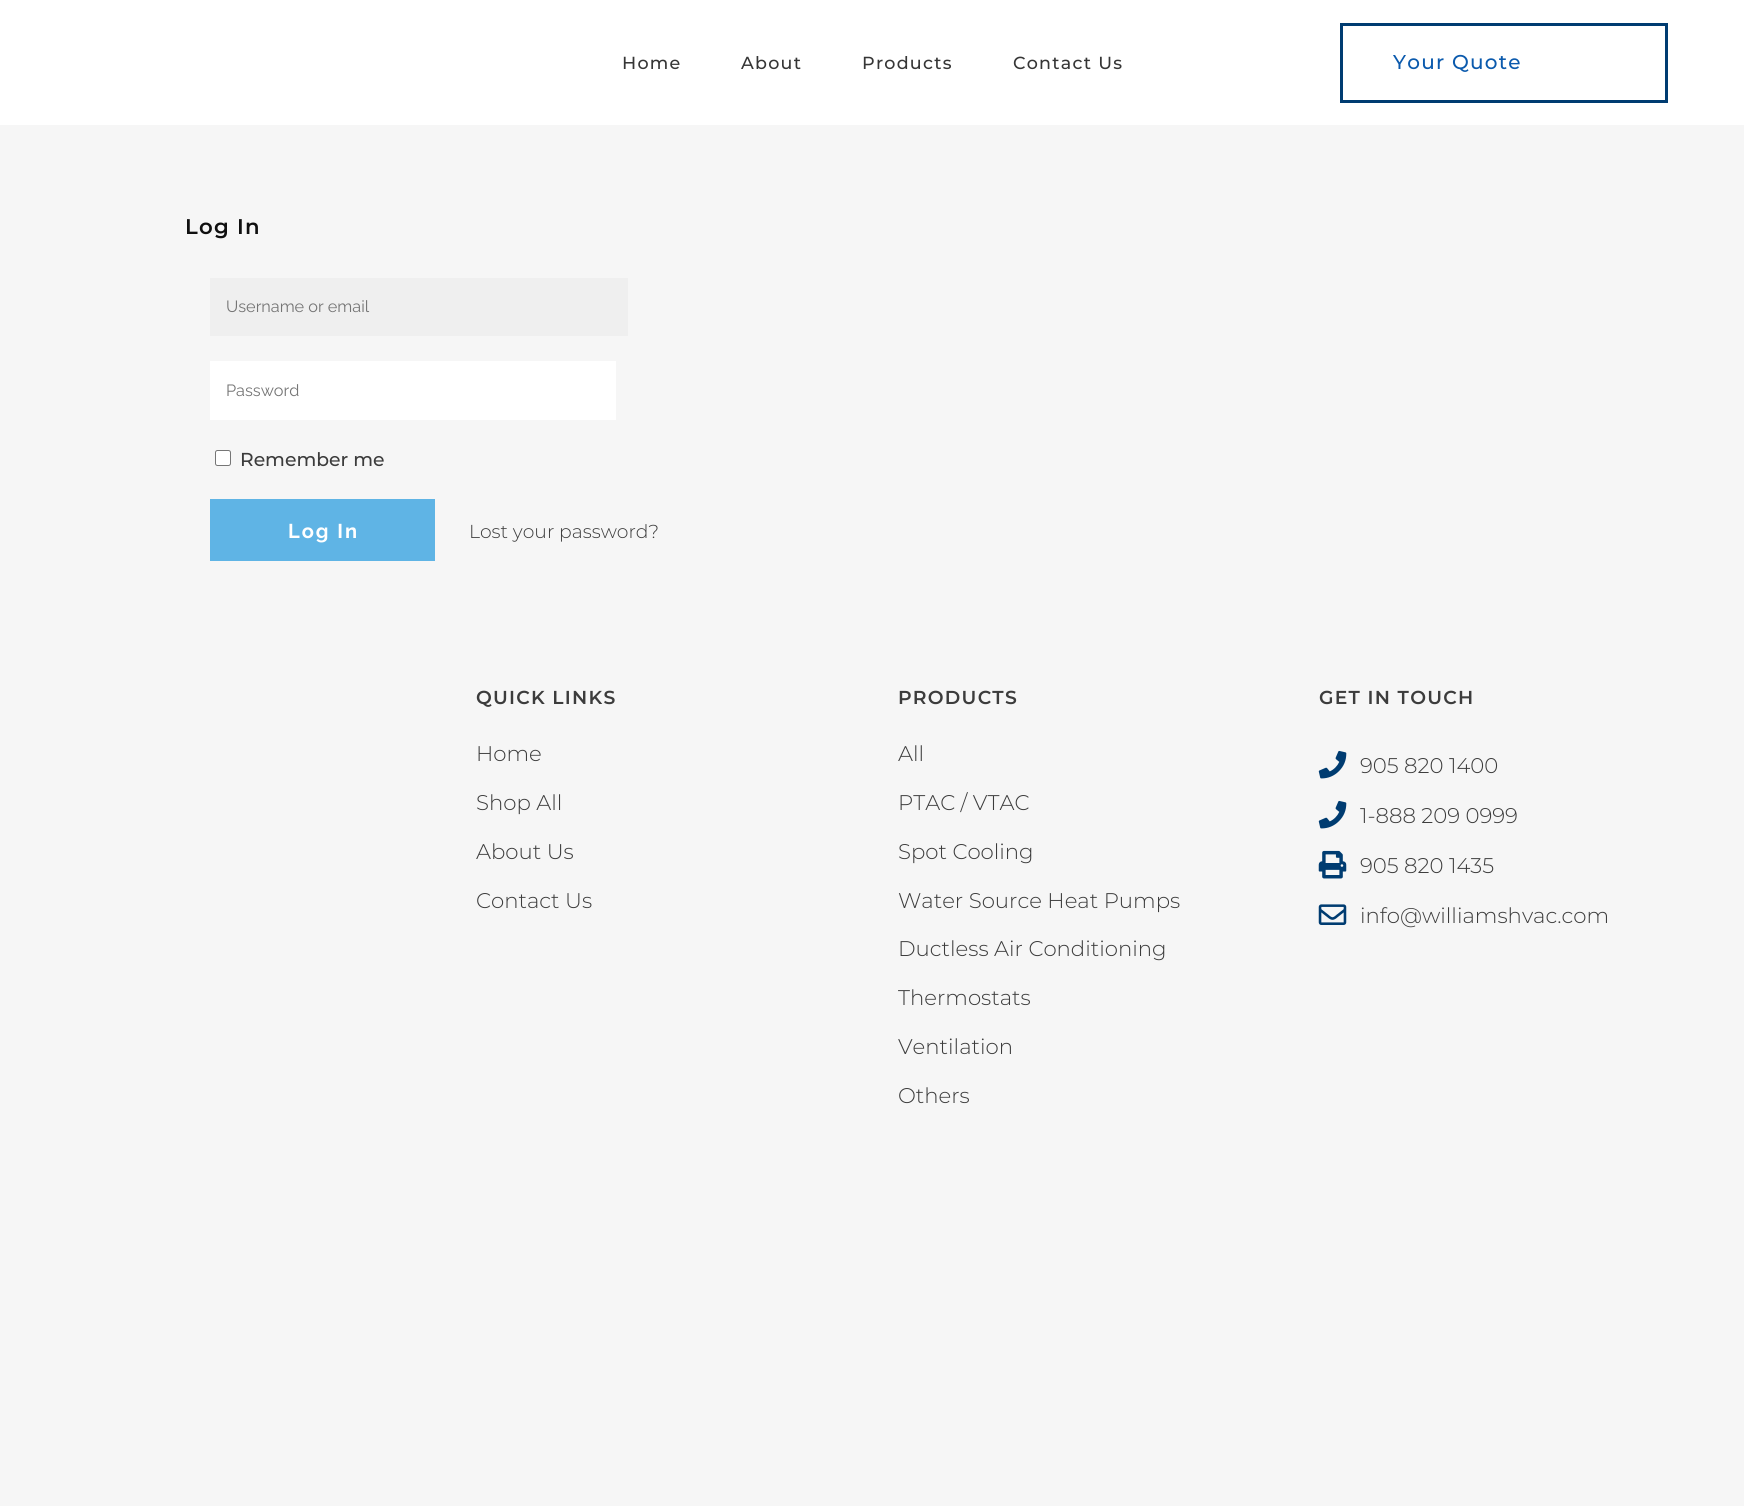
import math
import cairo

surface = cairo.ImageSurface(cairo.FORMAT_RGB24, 1744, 1506)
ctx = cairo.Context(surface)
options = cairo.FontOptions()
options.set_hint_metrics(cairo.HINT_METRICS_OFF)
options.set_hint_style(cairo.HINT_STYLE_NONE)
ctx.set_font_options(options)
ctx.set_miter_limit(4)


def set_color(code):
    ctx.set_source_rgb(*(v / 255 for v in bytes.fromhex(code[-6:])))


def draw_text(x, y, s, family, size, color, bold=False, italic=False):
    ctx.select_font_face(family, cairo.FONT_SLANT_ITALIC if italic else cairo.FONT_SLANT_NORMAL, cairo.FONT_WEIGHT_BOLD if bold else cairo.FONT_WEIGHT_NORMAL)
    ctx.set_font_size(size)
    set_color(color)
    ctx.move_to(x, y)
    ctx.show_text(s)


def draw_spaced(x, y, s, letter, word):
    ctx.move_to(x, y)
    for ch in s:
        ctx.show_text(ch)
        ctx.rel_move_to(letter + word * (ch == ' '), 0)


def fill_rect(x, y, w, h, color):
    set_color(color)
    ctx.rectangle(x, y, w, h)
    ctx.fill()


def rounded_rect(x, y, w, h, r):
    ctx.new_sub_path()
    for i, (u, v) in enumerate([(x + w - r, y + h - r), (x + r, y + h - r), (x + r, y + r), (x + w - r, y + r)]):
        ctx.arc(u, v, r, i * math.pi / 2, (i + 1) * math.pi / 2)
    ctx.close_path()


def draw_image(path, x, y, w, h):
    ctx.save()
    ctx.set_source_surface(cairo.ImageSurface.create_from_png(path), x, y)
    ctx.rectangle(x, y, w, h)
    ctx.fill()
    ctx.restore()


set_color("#f6f6f6")
ctx.paint()
fill_rect(0, 0, 1744, 125, "#ffffff")
ctx.select_font_face("Montserrat Medium")
ctx.set_font_size(17.5)
set_color("#363636")
draw_spaced(622, 69, "Home", 1.25, 0)
draw_spaced(741, 69, "About", 1.25, 0)
draw_spaced(862, 69, "Products", 1.25, 0)
draw_spaced(1013, 69, "Contact Us", 1.25, 0)
ctx.rectangle(1341.5, 24.5, 325, 77)
set_color("#003c71")
ctx.set_line_width(3)
ctx.stroke()
ctx.set_font_size(20)
set_color("#0b5aad")
draw_spaced(1393, 69, "Your Quote", 1.25, 0)
ctx.select_font_face("Montserrat SemiBold")
ctx.set_font_size(21.25)
set_color("#101010")
draw_spaced(185, 234, "Log In", 1.25, 0)
fill_rect(210, 278, 418, 58, "#efefef")
draw_text(226, 312, "Username or email", "Raleway", 16.25, "#757575")
fill_rect(210, 361, 406, 59, "#ffffff")
draw_text(226, 396, "Password", "Raleway", 16.25, "#757575")
set_color("#ffffff")
rounded_rect(215.5, 450.5, 15, 15, 2)
ctx.fill_preserve()
set_color("#767676")
ctx.set_line_width(1)
ctx.stroke()
draw_text(240, 466, "Remember me", "Montserrat Medium", 18.75, "#3c3c3c")
fill_rect(210, 499, 225, 62, "#5fb4e5")
ctx.select_font_face("Raleway", cairo.FONT_SLANT_NORMAL, cairo.FONT_WEIGHT_BOLD)
ctx.set_font_size(20)
set_color("#ffffff")
draw_spaced(288, 538, "Log In", 2, 0)
draw_text(469, 538, "Lost your password?", "Montserrat Light", 18.75, "#3c3c3c")
ctx.select_font_face("Montserrat SemiBold")
draw_spaced(476, 704, "QUICK LINKS", 1.25, 0)
draw_text(476, 761, "Home", "Montserrat Light", 21.25, "#3c3c3c")
draw_text(476, 810, "Shop All", "Montserrat Light", 21.25, "#3c3c3c")
draw_text(476, 859, "About Us", "Montserrat Light", 21.25, "#3c3c3c")
draw_text(476, 908, "Contact Us", "Montserrat Light", 21.25, "#3c3c3c")
ctx.select_font_face("Montserrat SemiBold")
ctx.set_font_size(18.75)
draw_spaced(898, 704, "PRODUCTS", 1.25, 0)
draw_text(898, 761, "All", "Montserrat Light", 21.25, "#3c3c3c")
draw_text(898, 810, "PTAC / VTAC", "Montserrat Light", 21.25, "#3c3c3c")
draw_text(898, 859, "Spot Cooling", "Montserrat Light", 21.25, "#3c3c3c")
draw_text(898, 908, "Water Source Heat Pumps", "Montserrat Light", 21.25, "#3c3c3c")
draw_text(898, 956, "Ductless Air Conditioning", "Montserrat Light", 21.25, "#3c3c3c")
draw_text(898, 1005, "Thermostats", "Montserrat Light", 21.25, "#3c3c3c")
draw_text(898, 1054, "Ventilation", "Montserrat Light", 21.25, "#3c3c3c")
draw_text(898, 1103, "Others", "Montserrat Light", 21.25, "#3c3c3c")
ctx.select_font_face("Montserrat SemiBold")
ctx.set_font_size(18.75)
draw_spaced(1319, 704, "GET IN TOUCH", 1.25, 0)
draw_image("assets/img1.png", 1318, 750, 29, 29)
draw_text(1360, 773, "905 820 1400", "Montserrat Light", 21.25, "#3c3c3c")
draw_image("assets/img1.png", 1318, 800, 29, 29)
draw_text(1360, 823, "1-888 209 0999", "Montserrat Light", 21.25, "#3c3c3c")
draw_image("assets/img2.png", 1318, 850, 29, 29)
draw_text(1360, 873, "905 820 1435", "Montserrat Light", 21.25, "#3c3c3c")
draw_image("assets/img3.png", 1318, 904, 29, 21)
draw_text(1360, 923, "info@williamshvac.com", "Montserrat Light", 21.25, "#3c3c3c")
surface.write_to_png("output.png")
